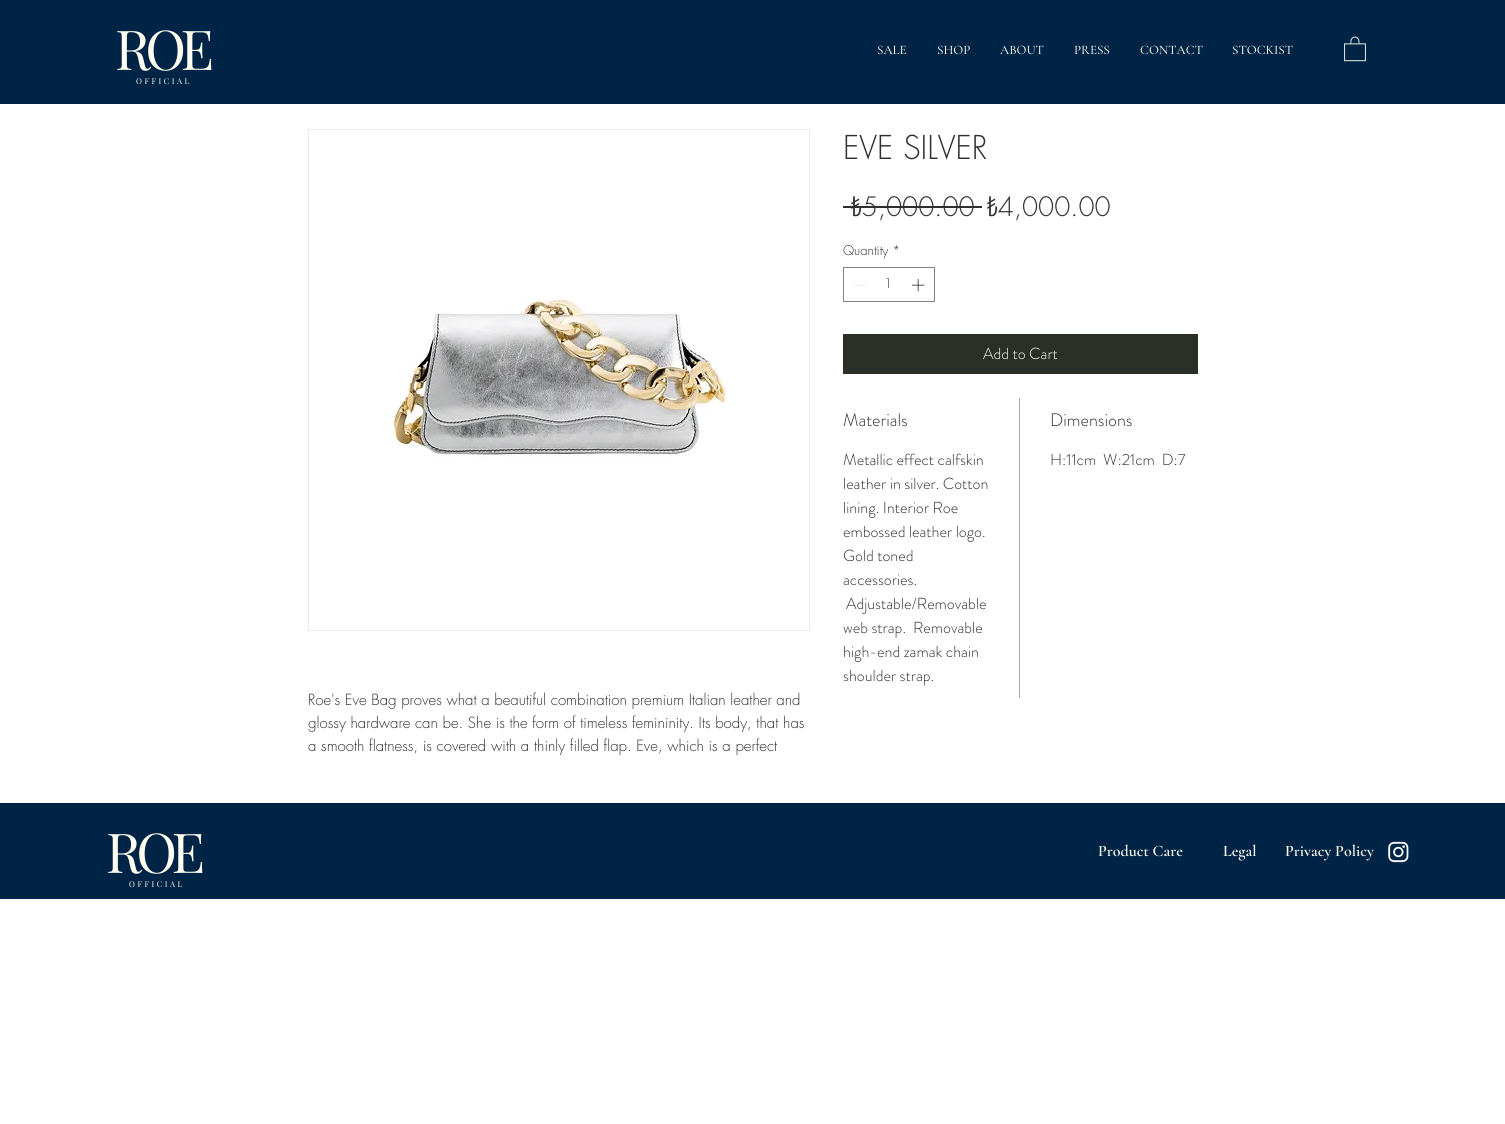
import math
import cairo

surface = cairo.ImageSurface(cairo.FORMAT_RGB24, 1505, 1124)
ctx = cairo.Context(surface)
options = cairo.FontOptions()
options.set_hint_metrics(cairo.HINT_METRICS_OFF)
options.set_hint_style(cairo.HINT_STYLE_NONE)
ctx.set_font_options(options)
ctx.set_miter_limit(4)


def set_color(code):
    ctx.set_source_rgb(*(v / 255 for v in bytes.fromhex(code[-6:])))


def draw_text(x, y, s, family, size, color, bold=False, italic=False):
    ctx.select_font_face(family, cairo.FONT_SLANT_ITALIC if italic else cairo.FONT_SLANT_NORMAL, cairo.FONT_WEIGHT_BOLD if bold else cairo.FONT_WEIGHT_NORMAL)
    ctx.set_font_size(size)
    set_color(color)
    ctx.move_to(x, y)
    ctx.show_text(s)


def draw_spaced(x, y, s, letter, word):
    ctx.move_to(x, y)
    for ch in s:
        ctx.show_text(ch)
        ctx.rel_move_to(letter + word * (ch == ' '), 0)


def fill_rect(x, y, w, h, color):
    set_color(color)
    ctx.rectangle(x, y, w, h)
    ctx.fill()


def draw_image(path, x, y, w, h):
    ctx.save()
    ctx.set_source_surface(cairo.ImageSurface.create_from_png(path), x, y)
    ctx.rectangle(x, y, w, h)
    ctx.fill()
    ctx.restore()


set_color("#ffffff")
ctx.paint()
fill_rect(0, 0, 1505, 104, "#002445")
ctx.select_font_face("Playfair Display")
ctx.set_font_size(55)
set_color("#fffdf0")
draw_spaced(115, 70, "ROE", -5.5, 0)
draw_text(877, 54, "SALE", "Cormorant Garamond Medium", 13, "#fffdf0")
draw_text(937, 54, "SHOP", "Cormorant Garamond Medium", 13, "#fffdf0")
draw_text(1000, 54, "ABOUT", "Cormorant Garamond Medium", 13, "#fffdf0")
draw_text(1074, 54, "PRESS", "Cormorant Garamond Medium", 13, "#fffdf0")
draw_text(1140, 54, "CONTACT", "Cormorant Garamond Medium", 13, "#fffdf0")
draw_text(1232, 54, "STOCKIST", "Cormorant Garamond Medium", 13, "#fffdf0")
draw_image("assets/img1.png", 1344, 36, 22, 26)
ctx.select_font_face("Playfair Display")
ctx.set_font_size(8)
draw_spaced(136, 84, "OFFICIAL", 2.5, 0)
draw_text(843, 159, "EVE SILVER", "futura Light", 32, "#2e302f")
draw_text(851, 216, "₺5,000.00", "futura Light", 26, "#2e302f")
fill_rect(843, 206, 139, 2, "#2e302f")
draw_text(987, 216, "₺4,000.00", "futura Light", 26, "#2e302f")
draw_text(843, 255, "Quantity *", "futura Light", 13, "#2e302f")
ctx.rectangle(843.5, 267.5, 91, 34)
set_color("#828382")
ctx.set_line_width(1)
ctx.stroke()
set_color("#e3e3e3")
ctx.set_fill_rule(cairo.FILL_RULE_EVEN_ODD)
ctx.new_path()
ctx.move_to(866, 285)
ctx.line_to(866, 285.5)
ctx.line_to(854, 285.5)
ctx.line_to(854, 285)
ctx.close_path()
ctx.fill()
draw_text(884, 288, "1", "futura Light", 13, "#2e302f")
draw_image("assets/img2.png", 912, 279, 13, 13)
fill_rect(843, 334, 355, 40, "#2a3028")
draw_text(983, 359, "Add to Cart", "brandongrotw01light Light", 16, "#ffffff")
fill_rect(1019, 398, 1, 300, "#a7a8a7")
draw_text(843, 426, "Materials", "brandongrotw01light Light", 18, "#2e302f")
draw_text(843, 465, "Metallic effect calfskin", "brandongrotw01light Light", 16, "#2e302f")
draw_text(843, 489, "leather in silver. Cotton", "brandongrotw01light Light", 16, "#2e302f")
draw_text(843, 513, "lining. Interior Roe", "brandongrotw01light Light", 16, "#2e302f")
draw_text(843, 537, "embossed leather logo.", "brandongrotw01light Light", 16, "#2e302f")
draw_text(843, 561, "Gold toned", "brandongrotw01light Light", 16, "#2e302f")
draw_text(843, 585, "accessories.", "brandongrotw01light Light", 16, "#2e302f")
draw_text(846, 609, "Adjustable/Removable", "brandongrotw01light Light", 16, "#2e302f")
draw_text(843, 633, "web strap.  Removable", "brandongrotw01light Light", 16, "#2e302f")
draw_text(843, 657, "high-end zamak chain", "brandongrotw01light Light", 16, "#2e302f")
draw_text(843, 681, "shoulder strap.", "brandongrotw01light Light", 16, "#2e302f")
draw_text(1050, 426, "Dimensions", "brandongrotw01light Light", 18, "#2e302f")
draw_text(1050, 465, "H:11cm  W:21cm  D:7", "brandongrotw01light Light", 16, "#2e302f")
ctx.rectangle(308.5, 129.5, 501, 501)
set_color("#e7eeea")
ctx.stroke()
draw_image("assets/img3.png", 388, 298, 338, 160)
draw_text(308, 705, "Roe's Eve Bag proves what a beautiful combination premium Italian leather and", "futura Light", 15, "#2e302f")
draw_text(308, 728, "glossy hardware can be. She is the form of timeless femininity. Its body, that has", "futura Light", 15, "#2e302f")
draw_text(308, 751, "a smooth flatness, is covered with a thinly filled flap. Eve, which is a perfect", "futura Light", 15, "#2e302f")
fill_rect(0, 803, 1505, 96, "#002445")
ctx.select_font_face("Playfair Display")
ctx.set_font_size(55)
set_color("#fffdf0")
draw_spaced(106, 873, "ROE", -5.5, 0)
draw_text(1098, 856, "Product Care", "Cormorant Garamond SemiBold", 16, "#fffdf0")
draw_text(1223, 856, "Legal", "Cormorant Garamond SemiBold", 16, "#fffdf0")
draw_text(1285, 856, "Privacy Policy", "Cormorant Garamond SemiBold", 16, "#fffdf0")
draw_image("assets/img4.png", 1388, 841, 21, 22)
ctx.select_font_face("Playfair Display")
ctx.set_font_size(8)
draw_spaced(129, 887, "OFFICIAL", 2.5, 0)
surface.write_to_png("output.png")
